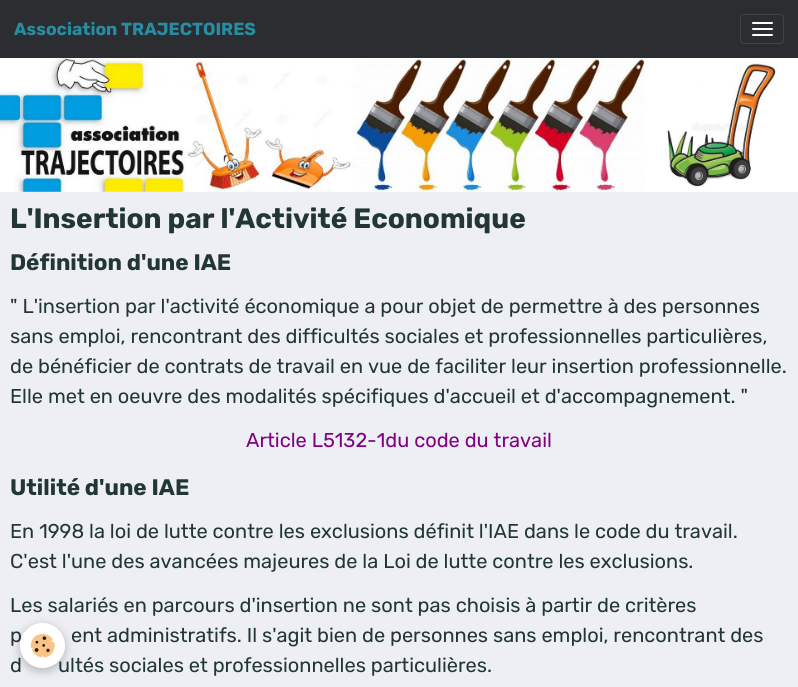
import math
import cairo

surface = cairo.ImageSurface(cairo.FORMAT_RGB24, 798, 687)
ctx = cairo.Context(surface)
options = cairo.FontOptions()
options.set_hint_metrics(cairo.HINT_METRICS_OFF)
options.set_hint_style(cairo.HINT_STYLE_NONE)
ctx.set_font_options(options)
ctx.set_miter_limit(4)


def set_color(code):
    ctx.set_source_rgb(*(v / 255 for v in bytes.fromhex(code[-6:])))


def draw_text(x, y, s, family, size, color, bold=False, italic=False):
    ctx.select_font_face(family, cairo.FONT_SLANT_ITALIC if italic else cairo.FONT_SLANT_NORMAL, cairo.FONT_WEIGHT_BOLD if bold else cairo.FONT_WEIGHT_NORMAL)
    ctx.set_font_size(size)
    set_color(color)
    ctx.move_to(x, y)
    ctx.show_text(s)


def fill_rect(x, y, w, h, color):
    set_color(color)
    ctx.rectangle(x, y, w, h)
    ctx.fill()


def rounded_rect(x, y, w, h, r):
    ctx.new_sub_path()
    for i, (u, v) in enumerate([(x + w - r, y + h - r), (x + r, y + h - r), (x + r, y + r), (x + w - r, y + r)]):
        ctx.arc(u, v, r, i * math.pi / 2, (i + 1) * math.pi / 2)
    ctx.close_path()


def draw_shadow(x, y, w, h, r, blur, alpha):
    ctx.push_group_with_content(cairo.CONTENT_ALPHA)
    ctx.set_operator(cairo.OPERATOR_SOURCE)
    for i in range(15, -16, -2):
        e = blur * i / 6
        if min(w, h) + 2 * e > 0:
            ctx.set_source_rgba(0, 0, 0, alpha * math.erfc((i - 1) / 8.5) / 2)
            rounded_rect(x - e, y - e, w + 2 * e, h + 2 * e, max(0, min(r + e + blur * .6, min(w, h) / 2 + e)))
            ctx.fill()
    ctx.mask(ctx.pop_group())


def draw_image(path, x, y, w, h):
    ctx.save()
    ctx.set_source_surface(cairo.ImageSurface.create_from_png(path), x, y)
    ctx.rectangle(x, y, w, h)
    ctx.fill()
    ctx.restore()


set_color("#edeff4")
ctx.paint()
fill_rect(0, 0, 798, 58, "#2c2d31")
draw_text(14, 35, "Association TRAJECTOIRES", "Rubik", 17.5, "#268da2", bold=True)
rounded_rect(740.5, 14.5, 43, 29, 3.5)
set_color("#414246")
ctx.set_line_width(1)
ctx.stroke()
set_color("#ffffff")
rounded_rect(752, 22, 21, 2, 1)
ctx.fill()
rounded_rect(752, 28, 21, 2, 1)
ctx.fill()
rounded_rect(752, 34, 21, 2, 1)
ctx.fill()
fill_rect(0, 58, 798, 134, "#ffffff")
draw_image("assets/img1.png", 0, 58, 778, 134)
draw_text(10, 228, "L'Insertion par l'Activité Economique", "Rubik", 28, "#233637", bold=True)
draw_text(10, 270, "Définition d'une IAE", "Rubik", 22.5, "#233637", bold=True)
draw_text(10, 313, "\" L'insertion par l'activité économique a pour objet de permettre à des personnes", "Rubik", 20, "#233637")
draw_text(10, 343, "sans emploi, rencontrant des difficultés sociales et professionnelles particulières,", "Rubik", 20, "#233637")
draw_text(10, 373, "de bénéficier de contrats de travail en vue de faciliter leur insertion professionnelle.", "Rubik", 20, "#233637")
draw_text(10, 403, "Elle met en oeuvre des modalités spécifiques d'accueil et d'accompagnement. \"", "Rubik", 20, "#233637")
draw_text(246, 447, "Article L5132-1du code du travail", "Rubik", 20, "#800080")
draw_text(10, 495, "Utilité d'une IAE", "Rubik", 22.5, "#233637", bold=True)
draw_text(10, 538, "En 1998 la loi de lutte contre les exclusions définit l'IAE dans le code du travail.", "Rubik", 20, "#233637")
draw_text(10, 568, "C'est l'une des avancées majeures de la Loi de lutte contre les exclusions.", "Rubik", 20, "#233637")
draw_text(10, 612, "Les salariés en parcours d'insertion ne sont pas choisis à partir de critères", "Rubik", 20, "#233637")
draw_text(10, 642, "p", "Rubik", 20, "#233637")
draw_text(71, 642, "ent administratifs. Il s'agit bien de personnes sans emploi, rencontrant des", "Rubik", 20, "#233637")
draw_text(10, 672, "d", "Rubik", 20, "#233637")
draw_text(58, 672, "ultés sociales et professionnelles particulières.", "Rubik", 20, "#233637")
set_color("#000000")
draw_shadow(20, 626, 45, 45, 22.5, 5, 0.24)
set_color("#ffffff")
ctx.arc(42.5, 645.5, 22.5, 0, 2 * math.pi)
ctx.fill()
draw_image("assets/img2.png", 30, 633, 25, 25)
surface.write_to_png("output.png")
